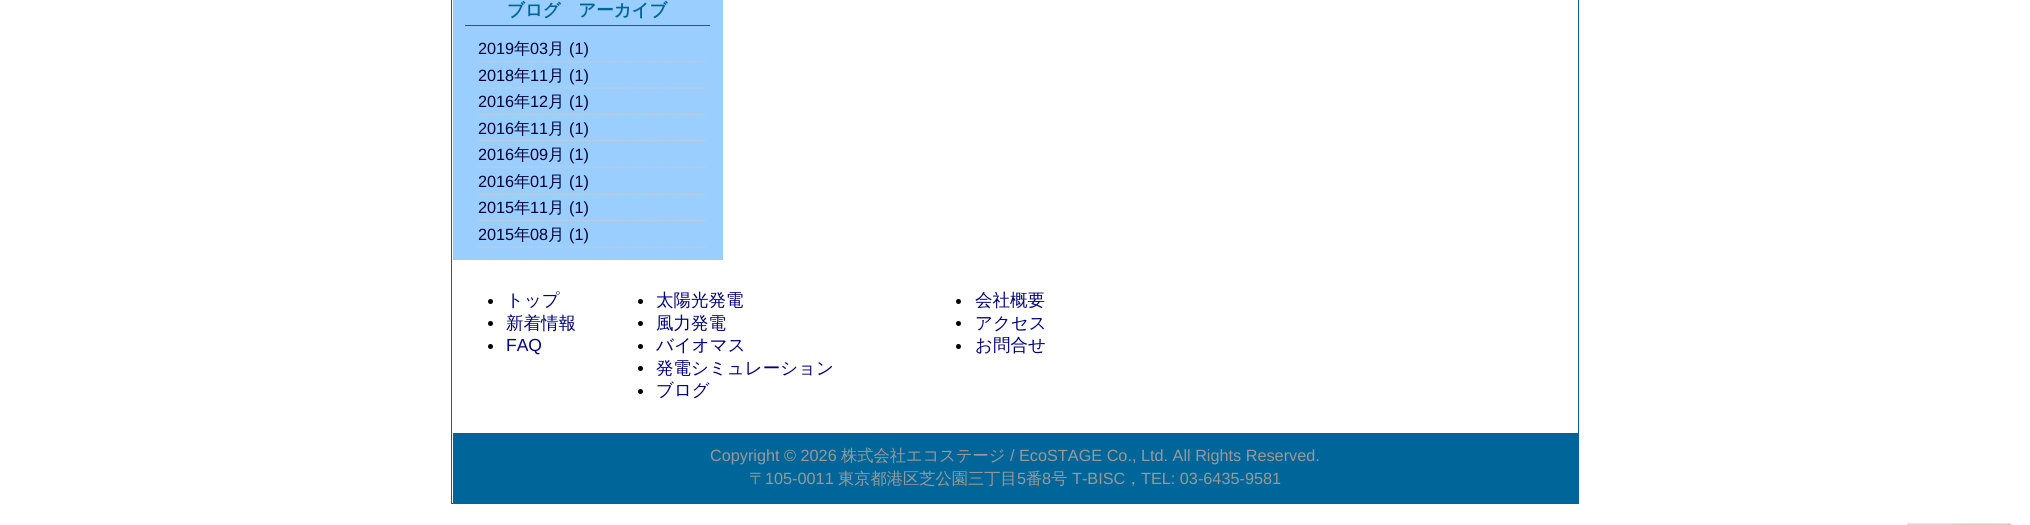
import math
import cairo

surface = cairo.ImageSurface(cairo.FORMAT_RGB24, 2030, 525)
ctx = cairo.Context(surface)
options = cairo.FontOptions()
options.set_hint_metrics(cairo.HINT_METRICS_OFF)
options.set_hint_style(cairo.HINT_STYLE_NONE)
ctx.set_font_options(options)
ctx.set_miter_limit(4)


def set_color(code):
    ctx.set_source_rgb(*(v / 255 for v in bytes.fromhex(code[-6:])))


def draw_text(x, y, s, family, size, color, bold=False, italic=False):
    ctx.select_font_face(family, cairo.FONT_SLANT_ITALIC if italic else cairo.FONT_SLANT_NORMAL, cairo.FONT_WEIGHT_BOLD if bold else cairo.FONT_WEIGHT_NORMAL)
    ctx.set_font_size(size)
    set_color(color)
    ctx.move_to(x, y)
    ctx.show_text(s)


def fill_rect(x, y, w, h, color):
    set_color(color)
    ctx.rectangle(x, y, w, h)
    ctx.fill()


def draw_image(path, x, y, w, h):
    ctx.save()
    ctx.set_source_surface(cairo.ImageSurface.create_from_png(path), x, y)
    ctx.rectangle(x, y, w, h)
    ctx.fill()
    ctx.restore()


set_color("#ffffff")
ctx.paint()
ctx.rectangle(451.5, -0.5, 1127, 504)
set_color("#006699")
ctx.set_line_width(1)
ctx.stroke()
fill_rect(453, 0, 270, 260, "#9aceff")
fill_rect(465, 25, 245, 1, "#006699")
draw_text(507, 16, "ブログ　アーカイブ", "WenQuanYi Zen Hei", 17.5, "#006699", bold=True)
ctx.new_path()
ctx.move_to(477.5, 62)
ctx.line_to(707.5, 62)
set_color("#cccccc")
ctx.set_line_width(1.2)
ctx.set_dash([1.25, 1.25])
ctx.stroke()
draw_text(478, 54, "2019", "Liberation Sans", 16.25, "#000033")
draw_text(514, 54, "年", "WenQuanYi Zen Hei Medium", 16.25, "#000033")
draw_text(530, 54, "03", "Liberation Sans", 16.25, "#000033")
draw_text(548, 54, "月", "WenQuanYi Zen Hei Medium", 16.25, "#000033")
draw_text(569, 54, "(1)", "Liberation Sans", 16.25, "#000033")
ctx.new_path()
ctx.move_to(477.5, 88)
ctx.line_to(707.5, 88)
set_color("#cccccc")
ctx.stroke()
draw_text(478, 81, "2018", "Liberation Sans", 16.25, "#000033")
draw_text(514, 81, "年", "WenQuanYi Zen Hei Medium", 16.25, "#000033")
draw_text(530, 81, "11", "Liberation Sans", 16.25, "#000033")
draw_text(548, 81, "月", "WenQuanYi Zen Hei Medium", 16.25, "#000033")
draw_text(569, 81, "(1)", "Liberation Sans", 16.25, "#000033")
ctx.new_path()
ctx.move_to(477.5, 114.5)
ctx.line_to(707.5, 114.5)
set_color("#cccccc")
ctx.stroke()
draw_text(478, 107, "2016", "Liberation Sans", 16.25, "#000033")
draw_text(514, 107, "年", "WenQuanYi Zen Hei Medium", 16.25, "#000033")
draw_text(530, 107, "12", "Liberation Sans", 16.25, "#000033")
draw_text(548, 107, "月", "WenQuanYi Zen Hei Medium", 16.25, "#000033")
draw_text(569, 107, "(1)", "Liberation Sans", 16.25, "#000033")
ctx.new_path()
ctx.move_to(477.5, 140.5)
ctx.line_to(707.5, 140.5)
set_color("#cccccc")
ctx.stroke()
draw_text(478, 134, "2016", "Liberation Sans", 16.25, "#000033")
draw_text(514, 134, "年", "WenQuanYi Zen Hei Medium", 16.25, "#000033")
draw_text(530, 134, "11", "Liberation Sans", 16.25, "#000033")
draw_text(548, 134, "月", "WenQuanYi Zen Hei Medium", 16.25, "#000033")
draw_text(569, 134, "(1)", "Liberation Sans", 16.25, "#000033")
ctx.new_path()
ctx.move_to(477.5, 167)
ctx.line_to(707.5, 167)
set_color("#cccccc")
ctx.stroke()
draw_text(478, 160, "2016", "Liberation Sans", 16.25, "#000033")
draw_text(514, 160, "年", "WenQuanYi Zen Hei Medium", 16.25, "#000033")
draw_text(530, 160, "09", "Liberation Sans", 16.25, "#000033")
draw_text(548, 160, "月", "WenQuanYi Zen Hei Medium", 16.25, "#000033")
draw_text(569, 160, "(1)", "Liberation Sans", 16.25, "#000033")
ctx.new_path()
ctx.move_to(477.5, 194.5)
ctx.line_to(707.5, 194.5)
set_color("#cccccc")
ctx.stroke()
draw_text(478, 187, "2016", "Liberation Sans", 16.25, "#000033")
draw_text(514, 187, "年", "WenQuanYi Zen Hei Medium", 16.25, "#000033")
draw_text(530, 187, "01", "Liberation Sans", 16.25, "#000033")
draw_text(548, 187, "月", "WenQuanYi Zen Hei Medium", 16.25, "#000033")
draw_text(569, 187, "(1)", "Liberation Sans", 16.25, "#000033")
ctx.new_path()
ctx.move_to(477.5, 220.5)
ctx.line_to(707.5, 220.5)
set_color("#cccccc")
ctx.stroke()
draw_text(478, 213, "2015", "Liberation Sans", 16.25, "#000033")
draw_text(514, 213, "年", "WenQuanYi Zen Hei Medium", 16.25, "#000033")
draw_text(530, 213, "11", "Liberation Sans", 16.25, "#000033")
draw_text(548, 213, "月", "WenQuanYi Zen Hei Medium", 16.25, "#000033")
draw_text(569, 213, "(1)", "Liberation Sans", 16.25, "#000033")
ctx.new_path()
ctx.move_to(477.5, 247)
ctx.line_to(707.5, 247)
set_color("#cccccc")
ctx.stroke()
draw_text(478, 240, "2015", "Liberation Sans", 16.25, "#000033")
draw_text(514, 240, "年", "WenQuanYi Zen Hei Medium", 16.25, "#000033")
draw_text(530, 240, "08", "Liberation Sans", 16.25, "#000033")
draw_text(548, 240, "月", "WenQuanYi Zen Hei Medium", 16.25, "#000033")
draw_text(569, 240, "(1)", "Liberation Sans", 16.25, "#000033")
set_color("#000000")
ctx.new_path()
ctx.arc(490.5, 301.5, 2.5, 0, 2 * math.pi)
ctx.fill()
draw_text(506, 306, "トップ", "WenQuanYi Zen Hei Medium", 17.5, "#000080")
set_color("#000000")
ctx.new_path()
ctx.arc(490.5, 323.5, 2.5, 0, 2 * math.pi)
ctx.fill()
draw_text(506, 329, "新着情報", "WenQuanYi Zen Hei Medium", 17.5, "#000080")
set_color("#000000")
ctx.new_path()
ctx.arc(490.5, 346.5, 2.5, 0, 2 * math.pi)
ctx.fill()
draw_text(506, 351, "FAQ", "Liberation Sans", 17.5, "#000080")
set_color("#000000")
ctx.new_path()
ctx.arc(640.5, 301.5, 2.5, 0, 2 * math.pi)
ctx.fill()
draw_text(656, 306, "太陽光発電", "WenQuanYi Zen Hei Medium", 17.5, "#000080")
set_color("#000000")
ctx.new_path()
ctx.arc(640.5, 323.5, 2.5, 0, 2 * math.pi)
ctx.fill()
draw_text(656, 329, "風力発電", "WenQuanYi Zen Hei Medium", 17.5, "#000080")
set_color("#000000")
ctx.new_path()
ctx.arc(640.5, 346.5, 2.5, 0, 2 * math.pi)
ctx.fill()
draw_text(656, 351, "バイオマス", "WenQuanYi Zen Hei Medium", 17.5, "#000080")
set_color("#000000")
ctx.new_path()
ctx.arc(640.5, 368.5, 2.5, 0, 2 * math.pi)
ctx.fill()
draw_text(656, 374, "発電シミュレーション", "WenQuanYi Zen Hei Medium", 17.5, "#000080")
set_color("#000000")
ctx.new_path()
ctx.arc(640.5, 391.5, 2.5, 0, 2 * math.pi)
ctx.fill()
draw_text(656, 396, "ブログ", "WenQuanYi Zen Hei Medium", 17.5, "#000080")
set_color("#000000")
ctx.new_path()
ctx.arc(958.5, 301.5, 2.5, 0, 2 * math.pi)
ctx.fill()
draw_text(975, 306, "会社概要", "WenQuanYi Zen Hei Medium", 17.5, "#000080")
set_color("#000000")
ctx.new_path()
ctx.arc(958.5, 323.5, 2.5, 0, 2 * math.pi)
ctx.fill()
draw_text(975, 329, "アクセス", "WenQuanYi Zen Hei Medium", 17.5, "#000080")
set_color("#000000")
ctx.new_path()
ctx.arc(958.5, 346.5, 2.5, 0, 2 * math.pi)
ctx.fill()
draw_text(975, 351, "お問合せ", "WenQuanYi Zen Hei Medium", 17.5, "#000080")
fill_rect(453, 433, 1125, 70, "#006699")
draw_text(710, 461, "Copyright © 2026", "Liberation Sans", 16.25, "#999999")
draw_text(841, 461, "株式会社エコステージ", "WenQuanYi Zen Hei Medium", 16.25, "#999999")
draw_text(1010, 461, "/ EcoSTAGE Co., Ltd. All Rights Reserved.", "Liberation Sans", 16.25, "#999999")
draw_text(749, 484, "〒", "WenQuanYi Zen Hei Medium", 16.25, "#999999")
draw_text(765, 484, "105-0011", "Liberation Sans", 16.25, "#999999")
draw_text(838, 484, "東京都港区芝公園三丁目", "WenQuanYi Zen Hei Medium", 16.25, "#999999")
draw_text(1017, 484, "5", "Liberation Sans", 16.25, "#999999")
draw_text(1026, 484, "番", "WenQuanYi Zen Hei Medium", 16.25, "#999999")
draw_text(1042, 484, "8", "Liberation Sans", 16.25, "#999999")
draw_text(1051, 484, "号", "WenQuanYi Zen Hei Medium", 16.25, "#999999")
draw_text(1072, 484, "T-BISC", "Liberation Sans", 16.25, "#999999")
draw_text(1125, 484, "，", "WenQuanYi Zen Hei Medium", 16.25, "#999999")
draw_text(1141, 484, "TEL: 03-6435-9581", "Liberation Sans", 16.25, "#999999")
draw_image("assets/img1.png", 1907, 523, 105, 2)
surface.write_to_png("output.png")
